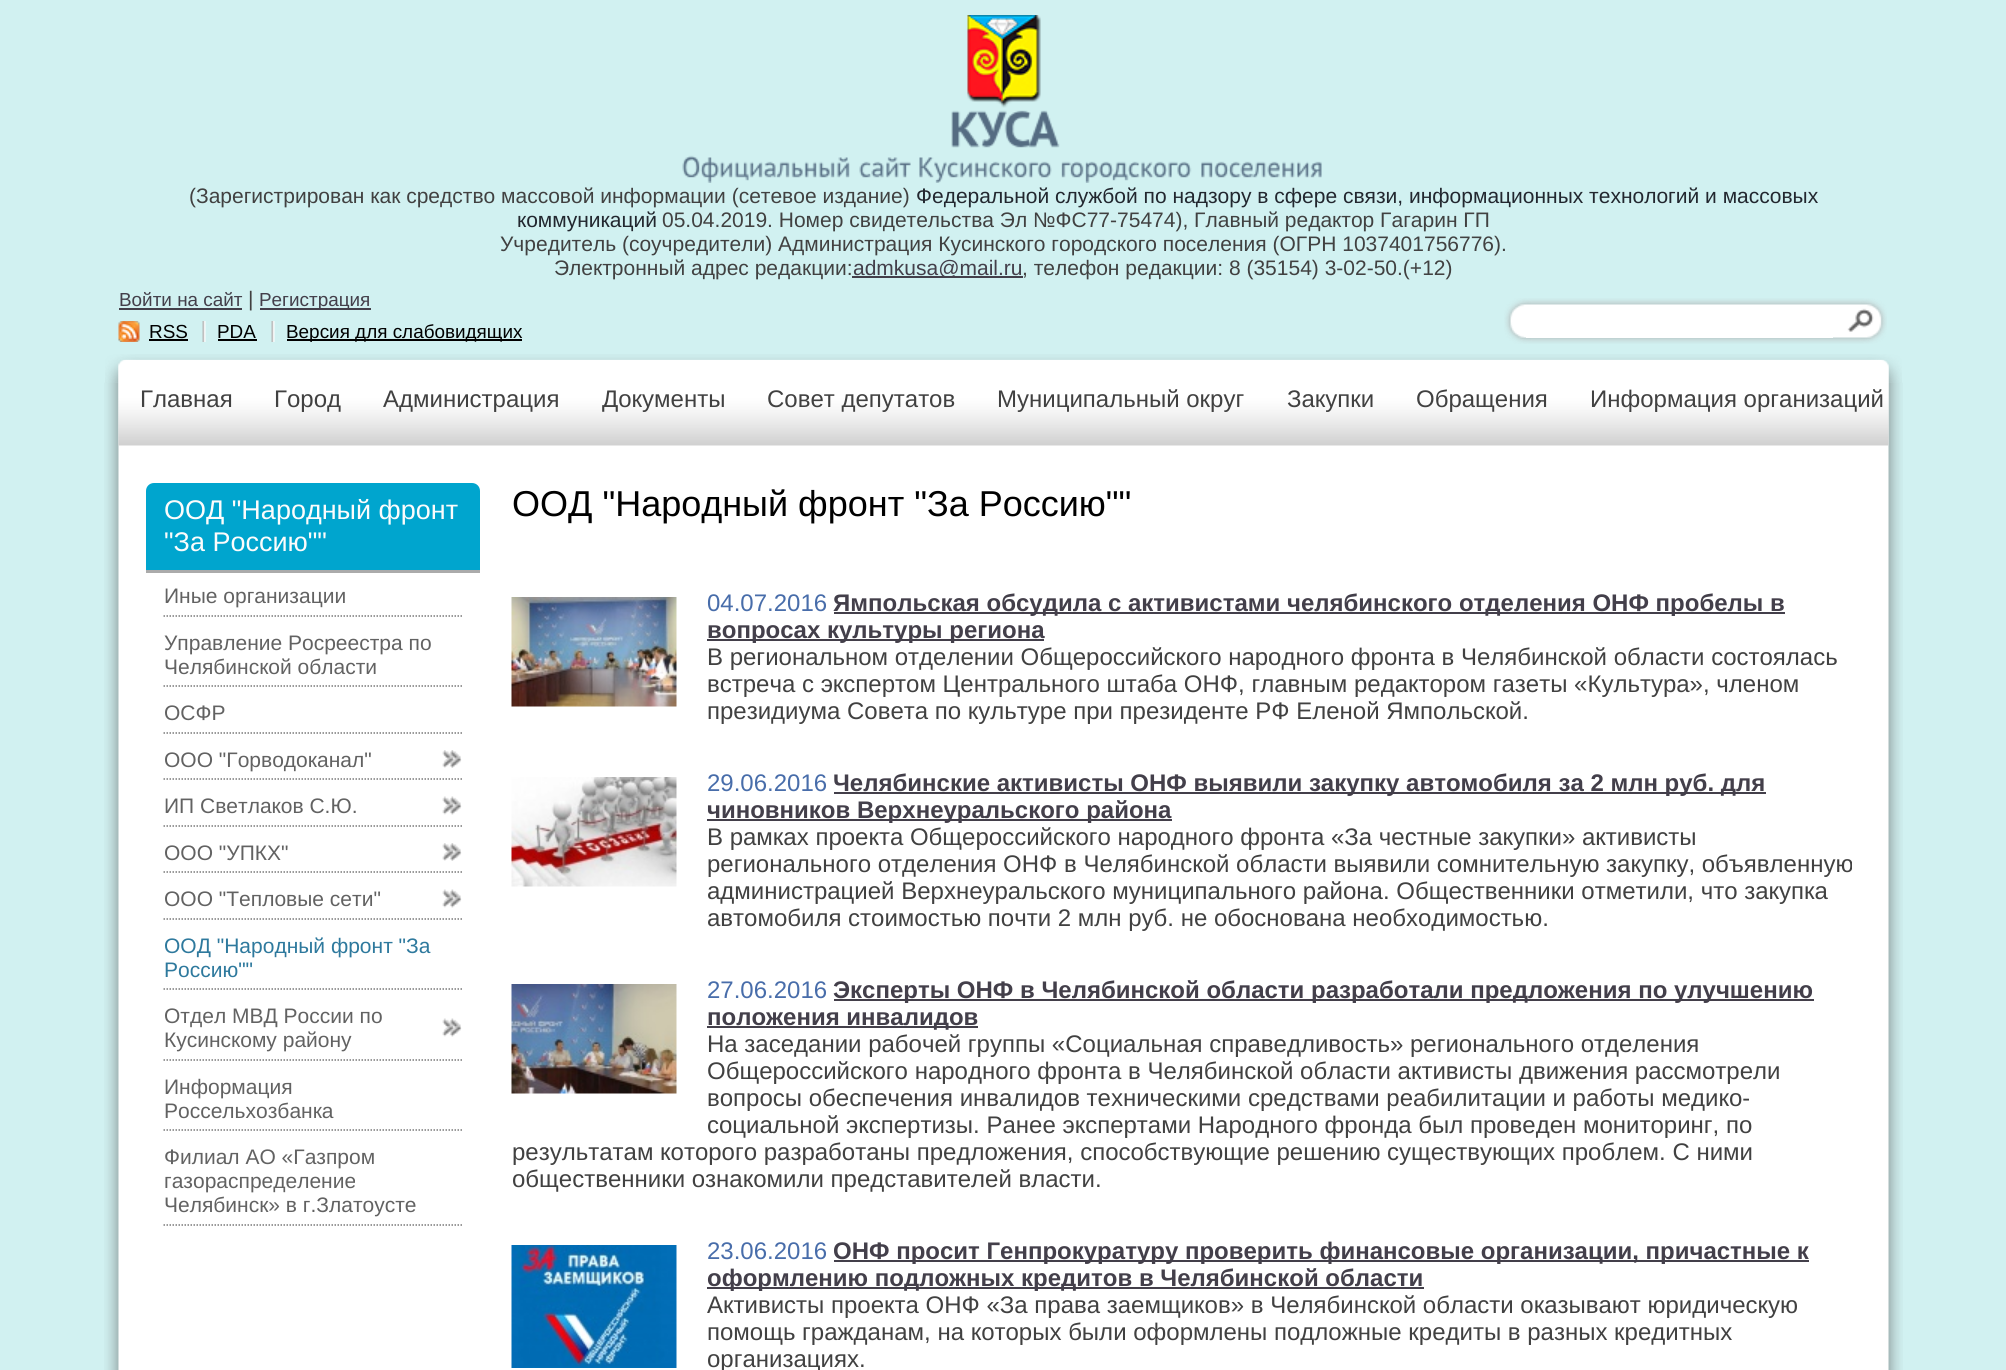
import math
import cairo

surface = cairo.ImageSurface(cairo.FORMAT_RGB24, 2006, 1370)
ctx = cairo.Context(surface)
options = cairo.FontOptions()
options.set_hint_metrics(cairo.HINT_METRICS_OFF)
options.set_hint_style(cairo.HINT_STYLE_NONE)
ctx.set_font_options(options)
ctx.set_miter_limit(4)


def set_color(code):
    ctx.set_source_rgb(*(v / 255 for v in bytes.fromhex(code[-6:])))


def draw_text(x, y, s, family, size, color, bold=False, italic=False):
    ctx.select_font_face(family, cairo.FONT_SLANT_ITALIC if italic else cairo.FONT_SLANT_NORMAL, cairo.FONT_WEIGHT_BOLD if bold else cairo.FONT_WEIGHT_NORMAL)
    ctx.set_font_size(size)
    set_color(color)
    ctx.move_to(x, y)
    ctx.show_text(s)


def fill_rect(x, y, w, h, color):
    set_color(color)
    ctx.rectangle(x, y, w, h)
    ctx.fill()


def draw_image(path, x, y, w, h):
    ctx.save()
    ctx.set_source_surface(cairo.ImageSurface.create_from_png(path), x, y)
    ctx.rectangle(x, y, w, h)
    ctx.fill()
    ctx.restore()


set_color("#d1f1f1")
ctx.paint()
draw_image("assets/img1.png", 967, 15, 74, 93)
draw_image("assets/img2.png", 951, 110, 109, 38)
draw_image("assets/img3.png", 682, 155, 168, 28)
draw_image("assets/img4.png", 859, 157, 52, 21)
draw_image("assets/img5.png", 919, 157, 133, 26)
draw_image("assets/img6.png", 1061, 161, 131, 22)
draw_image("assets/img7.png", 1201, 161, 121, 17)
draw_text(189, 203, "(Зарегистрирован как средство массовой информации (сетевое издание)", "Liberation Sans", 21, "#414141")
draw_text(916, 203, "Федеральной службой по надзору в сфере связи, информационных технологий и массовых", "Liberation Sans", 21, "#22272f")
draw_text(517, 227, "коммуникаций", "Liberation Sans", 21, "#22272f")
draw_text(662, 227, "05.04.2019. Номер свидетельства Эл №ФС77-75474), Главный редактор Гагарин ГП", "Liberation Sans", 21, "#414141")
draw_text(500, 251, "Учредитель (соучредители) Администрация Кусинского городского поселения (ОГРН 1037401756776).", "Liberation Sans", 21, "#414141")
draw_text(554, 275, "Электронный адрес редакции:", "Liberation Sans", 21, "#414141")
fill_rect(852, 276, 171, 2, "#433f4a")
draw_text(853, 275, "admkusa@mail.ru", "Liberation Sans", 21, "#433f4a")
draw_text(1022, 275, ", телефон редакции: 8 (35154) 3-02-50.(+12)", "Liberation Sans", 21, "#414141")
draw_text(119, 306, "Войти на сайт", "Liberation Sans", 18.9, "#433f4a")
fill_rect(119, 308, 123, 2, "#433f4a")
draw_text(248, 306, "|", "Liberation Sans", 21, "#414141")
fill_rect(260, 308, 111, 2, "#433f4a")
draw_text(259, 306, "Регистрация", "Liberation Sans", 18.9, "#433f4a")
draw_image("assets/img8.png", 1504, 298, 383, 46)
fill_rect(1526, 337, 307, 1, "#ffffff")
draw_image("assets/img9.png", 118, 321, 22, 21)
draw_text(149, 338, "RSS", "Liberation Sans", 18.9, "#000000")
fill_rect(149, 339, 39, 2, "#000000")
draw_image("assets/img10.png", 202, 321, 4, 21)
draw_text(217, 338, "PDA", "Liberation Sans", 18.9, "#000000")
fill_rect(218, 339, 39, 2, "#000000")
draw_image("assets/img10.png", 271, 321, 4, 21)
fill_rect(287, 339, 235, 2, "#000000")
draw_text(286, 338, "Версия для слабовидящих", "Liberation Sans", 18.9, "#000000")
draw_image("assets/img11.png", 104, 382, 1799, 988)
draw_image("assets/img12.png", 105, 354, 1797, 29)
draw_image("assets/img13.png", 118, 360, 1771, 86)
draw_text(140, 407, "Главная", "Liberation Sans", 24, "#414141")
draw_text(274, 407, "Город", "Liberation Sans", 24, "#414141")
draw_text(383, 407, "Администрация", "Liberation Sans", 24, "#414141")
draw_text(602, 407, "Документы", "Liberation Sans", 24, "#414141")
draw_text(767, 407, "Совет депутатов", "Liberation Sans", 24, "#414141")
draw_text(997, 407, "Муниципальный округ", "Liberation Sans", 24, "#414141")
draw_text(1287, 407, "Закупки", "Liberation Sans", 24, "#414141")
draw_text(1416, 407, "Обращения", "Liberation Sans", 24, "#414141")
draw_text(1590, 407, "Информация организаций", "Liberation Sans", 24, "#414141")
set_color("#00a5ce")
ctx.new_path()
ctx.move_to(154, 483)
ctx.line_to(472, 483)
ctx.curve_to(476.5, 483, 480, 486.5, 480, 491)
ctx.line_to(480, 573)
ctx.line_to(146, 573)
ctx.line_to(146, 491)
ctx.curve_to(146, 486.5, 149.5, 483, 154, 483)
ctx.close_path()
ctx.fill()
fill_rect(146, 570, 334, 3, "#ababab")
draw_text(164, 519, "ООД \"Народный фронт", "Liberation Sans", 27, "#fcfcfc")
draw_text(164, 551, "\"За Россию\"\"", "Liberation Sans", 27, "#fcfcfc")
ctx.new_path()
ctx.move_to(163.5, 616)
ctx.line_to(462, 616)
set_color("#797979")
ctx.set_line_width(1.5)
ctx.set_dash([1.5, 1.5])
ctx.stroke()
draw_text(164, 603, "Иные организации", "Liberation Sans", 21, "#626262")
ctx.new_path()
ctx.move_to(163.5, 686)
ctx.line_to(462, 686)
set_color("#797979")
ctx.stroke()
draw_text(164, 650, "Управление Росреестра по", "Liberation Sans", 21, "#626262")
draw_text(164, 674, "Челябинской области", "Liberation Sans", 21, "#626262")
ctx.new_path()
ctx.move_to(163.5, 733)
ctx.line_to(462, 733)
set_color("#797979")
ctx.stroke()
draw_text(164, 720, "ОСФР", "Liberation Sans", 21, "#626262")
ctx.new_path()
ctx.move_to(163.5, 779)
ctx.line_to(462, 779)
set_color("#797979")
ctx.stroke()
draw_image("assets/img14.png", 442, 750, 20, 18)
draw_text(164, 767, "ООО \"Горводоканал\"", "Liberation Sans", 21, "#626262")
ctx.new_path()
ctx.move_to(163.5, 826)
ctx.line_to(462, 826)
set_color("#797979")
ctx.stroke()
draw_image("assets/img15.png", 442, 796, 20, 19)
draw_text(164, 813, "ИП Светлаков С.Ю.", "Liberation Sans", 21, "#626262")
ctx.new_path()
ctx.move_to(163.5, 872)
ctx.line_to(462, 872)
set_color("#797979")
ctx.stroke()
draw_image("assets/img14.png", 442, 843, 20, 18)
draw_text(164, 860, "ООО \"УПКХ\"", "Liberation Sans", 21, "#626262")
ctx.new_path()
ctx.move_to(163.5, 919)
ctx.line_to(462, 919)
set_color("#797979")
ctx.stroke()
draw_image("assets/img15.png", 442, 889, 20, 19)
draw_text(164, 906, "ООО \"Тепловые сети\"", "Liberation Sans", 21, "#626262")
ctx.new_path()
ctx.move_to(163.5, 989)
ctx.line_to(462, 989)
set_color("#797979")
ctx.stroke()
draw_text(164, 953, "ООД \"Народный фронт \"За", "Liberation Sans", 21, "#2e799d")
draw_text(164, 977, "Россию\"\"", "Liberation Sans", 21, "#2e799d")
ctx.new_path()
ctx.move_to(163.5, 1060)
ctx.line_to(462, 1060)
set_color("#797979")
ctx.stroke()
draw_image("assets/img15.png", 442, 1018, 20, 19)
draw_text(164, 1023, "Отдел МВД России по", "Liberation Sans", 21, "#626262")
draw_text(164, 1047, "Кусинскому району", "Liberation Sans", 21, "#626262")
ctx.new_path()
ctx.move_to(163.5, 1130)
ctx.line_to(462, 1130)
set_color("#797979")
ctx.stroke()
draw_text(164, 1094, "Информация", "Liberation Sans", 21, "#626262")
draw_text(164, 1118, "Россельхозбанка", "Liberation Sans", 21, "#626262")
ctx.new_path()
ctx.move_to(163.5, 1225)
ctx.line_to(462, 1225)
set_color("#797979")
ctx.stroke()
draw_text(164, 1164, "Филиал АО «Газпром", "Liberation Sans", 21, "#626262")
draw_text(164, 1188, "газораспределение", "Liberation Sans", 21, "#626262")
draw_text(164, 1212, "Челябинск» в г.Златоусте", "Liberation Sans", 21, "#626262")
draw_text(512, 516, "ООД \"Народный фронт \"За Россию\"\"", "Liberation Sans", 36, "#000000")
draw_image("assets/img16.png", 511, 597, 166, 110)
draw_text(707, 611, "04.07.2016", "Liberation Sans", 24, "#486daa")
fill_rect(834, 612, 951, 2, "#433f4a")
draw_text(833, 611, "Ямпольская обсудила с активистами челябинского отделения ОНФ пробелы в", "Liberation Sans", 24, "#433f4a", bold=True)
fill_rect(707, 639, 337, 2, "#433f4a")
draw_text(707, 638, "вопросах культуры региона", "Liberation Sans", 24, "#433f4a", bold=True)
draw_text(707, 665, "В региональном отделении Общероссийского народного фронта в Челябинской области состоялась", "Liberation Sans", 24, "#414141")
draw_text(707, 692, "встреча с экспертом Центрального штаба ОНФ, главным редактором газеты «Культура», членом", "Liberation Sans", 24, "#414141")
draw_text(707, 719, "президиума Совета по культуре при президенте РФ Еленой Ямпольской.", "Liberation Sans", 24, "#414141")
draw_image("assets/img17.png", 511, 777, 166, 110)
draw_text(707, 791, "29.06.2016", "Liberation Sans", 24, "#486daa")
fill_rect(834, 792, 932, 2, "#433f4a")
draw_text(833, 791, "Челябинские активисты ОНФ выявили закупку автомобиля за 2 млн руб. для", "Liberation Sans", 24, "#433f4a", bold=True)
fill_rect(707, 819, 465, 2, "#433f4a")
draw_text(707, 818, "чиновников Верхнеуральского района", "Liberation Sans", 24, "#433f4a", bold=True)
draw_text(707, 845, "В рамках проекта Общероссийского народного фронта «За честные закупки» активисты", "Liberation Sans", 24, "#414141")
draw_text(707, 872, "регионального отделения ОНФ в Челябинской области выявили сомнительную закупку, объявленную", "Liberation Sans", 24, "#414141")
draw_text(707, 899, "администрацией Верхнеуральского муниципального района. Общественники отметили, что закупка", "Liberation Sans", 24, "#414141")
draw_text(707, 926, "автомобиля стоимостью почти 2 млн руб. не обоснована необходимостью.", "Liberation Sans", 24, "#414141")
draw_image("assets/img18.png", 511, 984, 166, 110)
draw_text(707, 998, "27.06.2016", "Liberation Sans", 24, "#486daa")
fill_rect(834, 999, 980, 2, "#433f4a")
draw_text(833, 998, "Эксперты ОНФ в Челябинской области разработали предложения по улучшению", "Liberation Sans", 24, "#433f4a", bold=True)
fill_rect(707, 1026, 271, 2, "#433f4a")
draw_text(707, 1025, "положения инвалидов", "Liberation Sans", 24, "#433f4a", bold=True)
draw_text(707, 1052, "На заседании рабочей группы «Социальная справедливость» регионального отделения", "Liberation Sans", 24, "#414141")
draw_text(707, 1079, "Общероссийского народного фронта в Челябинской области активисты движения рассмотрели", "Liberation Sans", 24, "#414141")
draw_text(707, 1106, "вопросы обеспечения инвалидов техническими средствами реабилитации и работы медико-", "Liberation Sans", 24, "#414141")
draw_text(707, 1133, "социальной экспертизы. Ранее экспертами Народного фронда был проведен мониторинг, по", "Liberation Sans", 24, "#414141")
draw_text(512, 1160, "результатам которого разработаны предложения, способствующие решению существующих проблем. С ними", "Liberation Sans", 24, "#414141")
draw_text(512, 1187, "общественники ознакомили представителей власти.", "Liberation Sans", 24, "#414141")
draw_image("assets/img19.png", 511, 1245, 166, 123)
draw_text(707, 1259, "23.06.2016", "Liberation Sans", 24, "#486daa")
fill_rect(834, 1260, 975, 2, "#433f4a")
draw_text(833, 1259, "ОНФ просит Генпрокуратуру проверить финансовые организации, причастные к", "Liberation Sans", 24, "#433f4a", bold=True)
fill_rect(707, 1287, 717, 2, "#433f4a")
draw_text(707, 1286, "оформлению подложных кредитов в Челябинской области", "Liberation Sans", 24, "#433f4a", bold=True)
draw_text(707, 1313, "Активисты проекта ОНФ «За права заемщиков» в Челябинской области оказывают юридическую", "Liberation Sans", 24, "#414141")
draw_text(707, 1340, "помощь гражданам, на которых были оформлены подложные кредиты в разных кредитных", "Liberation Sans", 24, "#414141")
draw_text(707, 1367, "организациях.", "Liberation Sans", 24, "#414141")
surface.write_to_png("output.png")
